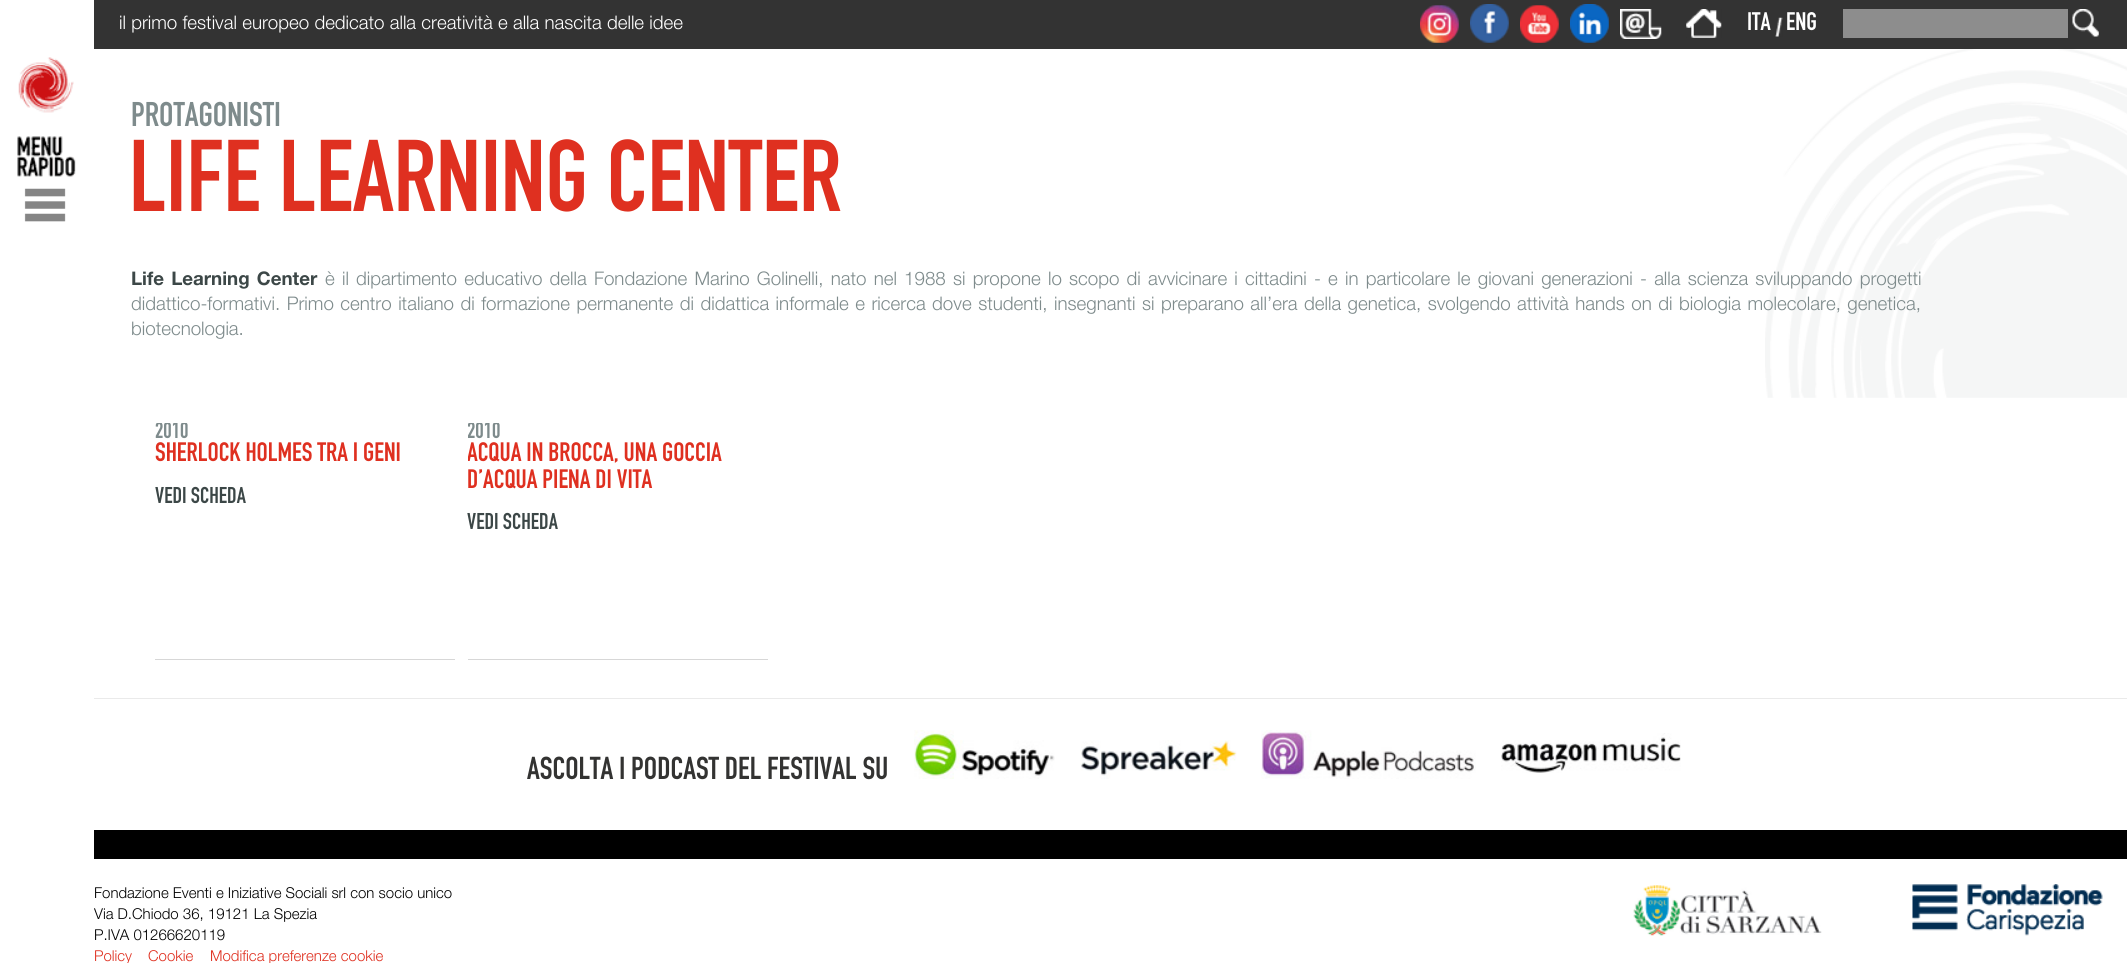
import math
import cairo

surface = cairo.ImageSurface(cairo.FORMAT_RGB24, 2127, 963)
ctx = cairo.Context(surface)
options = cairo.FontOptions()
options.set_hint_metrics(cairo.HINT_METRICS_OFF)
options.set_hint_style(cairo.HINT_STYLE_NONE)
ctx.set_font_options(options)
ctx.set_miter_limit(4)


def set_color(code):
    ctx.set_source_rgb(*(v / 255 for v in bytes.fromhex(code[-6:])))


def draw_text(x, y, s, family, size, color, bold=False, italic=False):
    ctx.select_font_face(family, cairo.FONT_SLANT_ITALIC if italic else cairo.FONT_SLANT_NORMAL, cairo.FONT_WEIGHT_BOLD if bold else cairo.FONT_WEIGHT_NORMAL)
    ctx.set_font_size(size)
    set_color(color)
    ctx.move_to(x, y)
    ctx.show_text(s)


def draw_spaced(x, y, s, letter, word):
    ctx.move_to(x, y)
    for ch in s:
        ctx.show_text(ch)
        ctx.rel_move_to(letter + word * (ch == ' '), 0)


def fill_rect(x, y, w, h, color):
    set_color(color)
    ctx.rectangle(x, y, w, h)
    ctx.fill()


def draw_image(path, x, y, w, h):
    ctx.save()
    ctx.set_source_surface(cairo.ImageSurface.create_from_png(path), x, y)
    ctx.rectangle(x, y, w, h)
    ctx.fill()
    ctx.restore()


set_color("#ffffff")
ctx.paint()
draw_text(94, 919, "Via D.Chiodo 36, 19121 La Spezia", "Helvetica Neue Light", 15, "#000000")
fill_rect(93, 908, 1, 2, "#ffffff")
draw_image("assets/img1.png", 17, 57, 59, 165)
fill_rect(94, 0, 2033, 49, "#333333")
draw_text(119, 29, "il primo festival europeo dedicato alla creatività e alla nascita delle idee", "Helvetica Neue Light", 18.75, "#ffffff")
draw_image("assets/img2.png", 1420, 5, 39, 38)
draw_image("assets/img3.png", 1470, 4, 39, 39)
draw_image("assets/img4.png", 1520, 5, 39, 38)
draw_image("assets/img5.png", 1570, 4, 39, 39)
draw_image("assets/img6.png", 1620, 9, 42, 30)
draw_image("assets/img7.png", 1686, 9, 36, 29)
draw_image("assets/img8.png", 1775, 17, 8, 20)
draw_text(1747, 30, "ITA", "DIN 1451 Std", 25, "#ffffff")
draw_text(1786, 30, "ENG", "DIN 1451 Std", 25, "#ffffff")
fill_rect(1843, 9, 225, 29, "#8d8d8d")
draw_image("assets/img9.png", 2072, 9, 27, 28)
draw_image("assets/img10.png", 1765, 49, 362, 349)
draw_text(131, 126, "PROTAGONISTI", "DIN 1451 Std", 33.75, "#7e8b8c")
draw_text(129, 211, "LIFE LEARNING CENTER", "DIN 1451 Std", 100, "#df3020")
ctx.select_font_face("Helvetica Neue", cairo.FONT_SLANT_NORMAL, cairo.FONT_WEIGHT_BOLD)
ctx.set_font_size(18.75)
set_color("#3c4747")
draw_spaced(131, 285, "Life Learning Center", 0, 2)
ctx.select_font_face("Helvetica Neue Light")
set_color("#7e8b8c")
draw_spaced(325, 285, "è il dipartimento educativo della Fondazione Marino Golinelli, nato nel 1988 si propone lo scopo di avvicinare i cittadini - e in particolare le giovani generazioni - alla scienza sviluppando progetti", 0, 2)
draw_spaced(131, 310, "didattico-formativi. Primo centro italiano di formazione permanente di didattica informale e ricerca dove studenti, insegnanti si preparano all’era della genetica, svolgendo attività hands on di biologia molecolare, genetica,", 0, 1.25)
draw_text(131, 335, "biotecnologia.", "Helvetica Neue Light", 18.75, "#7e8b8c")
fill_rect(155, 659, 300, 1, "#d7d7d7")
ctx.save()
ctx.rectangle(155, 423, 300, 236)
ctx.clip()
draw_text(155, 438, "2010", "DIN 1451 Std", 22.5, "#7e8b8c")
ctx.restore()
draw_text(155, 461, "SHERLOCK HOLMES TRA I GENI", "DIN 1451 Std", 26.25, "#df3020")
draw_text(155, 503, "VEDI SCHEDA", "DIN 1451 Std", 22.5, "#3c4747")
fill_rect(468, 659, 300, 1, "#d7d7d7")
ctx.save()
ctx.rectangle(468, 423, 300, 236)
ctx.clip()
draw_text(467, 438, "2010", "DIN 1451 Std", 22.5, "#7e8b8c")
draw_text(467, 461, "ACQUA IN BROCCA, UNA GOCCIA", "DIN 1451 Std", 26.25, "#df3020")
ctx.restore()
draw_text(467, 488, "D’ACQUA PIENA DI VITA", "DIN 1451 Std", 26.25, "#df3020")
draw_text(467, 529, "VEDI SCHEDA", "DIN 1451 Std", 22.5, "#3c4747")
fill_rect(94, 698, 2033, 1, "#eaeaea")
draw_text(527, 779, "ASCOLTA I PODCAST DEL FESTIVAL SU", "DIN 1451 Std", 31.25, "#333332")
draw_image("assets/img11.png", 914, 730, 141, 49)
draw_image("assets/img12.png", 1080, 740, 157, 39)
draw_image("assets/img13.png", 1261, 730, 215, 49)
draw_image("assets/img14.png", 1501, 733, 180, 40)
fill_rect(94, 830, 2033, 29, "#000000")
draw_text(94, 898, "Fondazione Eventi e Iniziative Sociali srl con socio unico", "Helvetica Neue Light", 15, "#000000")
draw_text(94, 940, "P.IVA 01266620119", "Helvetica Neue Light", 15, "#000000")
draw_text(94, 961, "Policy", "Helvetica Neue Light", 15, "#df3020")
draw_text(148, 961, "Cookie", "Helvetica Neue Light", 15, "#df3020")
draw_text(210, 961, "Modifica preferenze cookie", "Helvetica Neue Light", 15, "#df3020")
draw_image("assets/img15.png", 1633, 885, 189, 51)
draw_image("assets/img16.png", 1912, 884, 191, 52)
surface.write_to_png("output.png")
